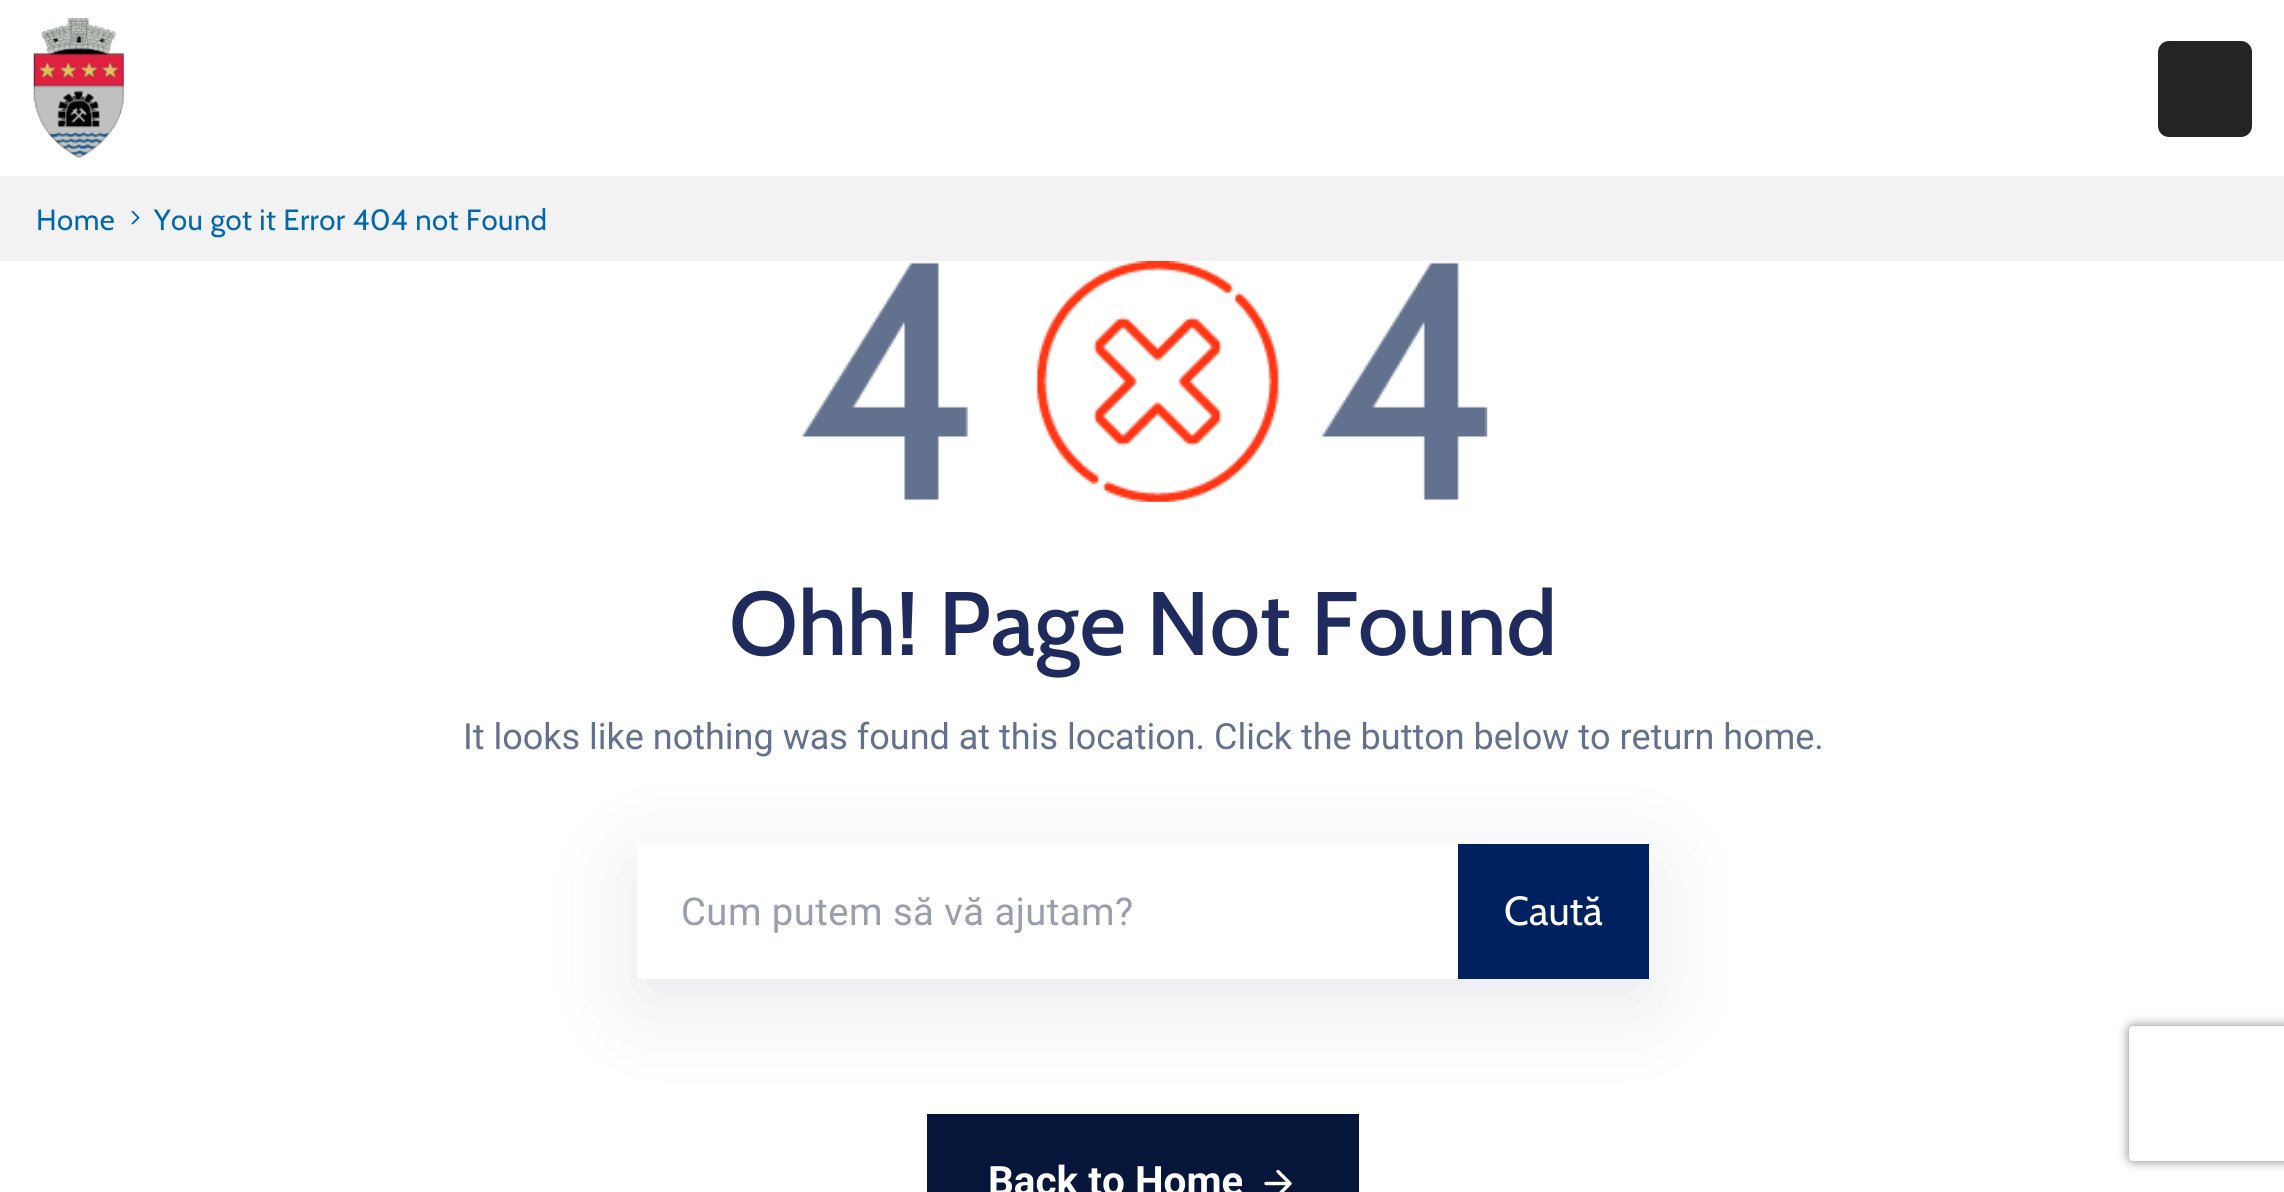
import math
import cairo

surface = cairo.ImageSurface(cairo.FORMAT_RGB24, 2284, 1192)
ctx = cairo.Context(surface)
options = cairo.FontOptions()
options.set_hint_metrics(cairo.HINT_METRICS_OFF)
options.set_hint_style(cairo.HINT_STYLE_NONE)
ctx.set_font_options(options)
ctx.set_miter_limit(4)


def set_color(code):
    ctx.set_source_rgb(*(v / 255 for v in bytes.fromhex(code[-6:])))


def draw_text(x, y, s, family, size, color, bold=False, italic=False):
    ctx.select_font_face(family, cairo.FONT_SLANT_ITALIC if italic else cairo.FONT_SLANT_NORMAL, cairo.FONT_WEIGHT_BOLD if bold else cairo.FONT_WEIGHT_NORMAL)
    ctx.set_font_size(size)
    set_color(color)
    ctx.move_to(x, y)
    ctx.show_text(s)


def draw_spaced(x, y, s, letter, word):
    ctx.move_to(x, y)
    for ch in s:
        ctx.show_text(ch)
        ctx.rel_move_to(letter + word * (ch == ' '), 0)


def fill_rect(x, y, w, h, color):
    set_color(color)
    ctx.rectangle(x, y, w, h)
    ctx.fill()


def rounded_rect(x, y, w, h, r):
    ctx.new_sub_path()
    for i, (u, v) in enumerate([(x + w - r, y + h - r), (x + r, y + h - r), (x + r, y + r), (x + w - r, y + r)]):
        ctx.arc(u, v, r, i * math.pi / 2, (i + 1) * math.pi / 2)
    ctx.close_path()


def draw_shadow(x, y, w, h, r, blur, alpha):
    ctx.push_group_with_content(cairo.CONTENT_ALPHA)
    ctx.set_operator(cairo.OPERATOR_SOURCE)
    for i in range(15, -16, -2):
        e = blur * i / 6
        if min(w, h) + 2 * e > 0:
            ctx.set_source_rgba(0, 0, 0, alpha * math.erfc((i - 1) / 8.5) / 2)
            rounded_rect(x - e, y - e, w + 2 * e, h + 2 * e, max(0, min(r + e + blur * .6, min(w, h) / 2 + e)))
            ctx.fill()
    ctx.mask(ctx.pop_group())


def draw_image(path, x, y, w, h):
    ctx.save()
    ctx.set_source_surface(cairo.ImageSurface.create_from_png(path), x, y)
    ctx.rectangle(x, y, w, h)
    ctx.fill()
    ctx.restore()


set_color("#ffffff")
ctx.paint()
draw_image("assets/img1.png", 33, 18, 91, 140)
set_color("#242424")
rounded_rect(2158, 41, 94, 96, 11)
ctx.fill()
fill_rect(0, 176, 2284, 85, "#f2f2f2")
ctx.select_font_face("Cabin")
ctx.set_font_size(29.25)
set_color("#0067b2")
draw_spaced(36, 230, "Home", 0.45, 0)
draw_image("assets/img2.png", 131, 210, 9, 15)
draw_spaced(154, 230, "You got it Error 404 not Found", 0.45, 0)
draw_image("assets/img3.png", 801, 261, 687, 241)
draw_text(729, 655, "Ohh! Page Not Found", "Cabin Medium", 90, "#202b5d")
draw_text(463, 749, "It looks like nothing was found at this location. Click the button below to return home.", "Roboto", 36, "#62718d")
set_color("#06163a")
draw_shadow(637, 866, 1012, 135, 0, 45, 0.1)
fill_rect(637, 844, 821, 135, "#ffffff")
ctx.set_font_size(38.25)
set_color("#999eac")
draw_spaced(681, 925, "Cum putem să vă ajutam?", 0.45, 0)
fill_rect(1458, 844, 191, 135, "#002160")
draw_text(1504, 925, "Caută", "Cabin", 40.5, "#ffffff")
fill_rect(927, 1114, 432, 78, "#06163a")
draw_text(988, 1195, "Back to Home", "Roboto", 40.5, "#ffffff", bold=True)
ctx.new_path()
ctx.move_to(1266, 1183.5)
ctx.line_to(1290, 1183.5)
ctx.move_to(1278, 1171.5)
ctx.line_to(1290, 1183.5)
ctx.line_to(1278, 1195.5)
ctx.set_line_width(3.4)
ctx.set_line_cap(cairo.LINE_CAP_ROUND)
ctx.set_line_join(cairo.LINE_JOIN_ROUND)
ctx.stroke()
ctx.save()
ctx.set_fill_rule(cairo.FILL_RULE_EVEN_ODD)
ctx.new_path()
ctx.move_to(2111, 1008)
ctx.line_to(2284, 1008)
ctx.line_to(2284, 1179)
ctx.line_to(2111, 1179)
ctx.close_path()
ctx.move_to(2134, 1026)
ctx.line_to(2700, 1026)
ctx.curve_to(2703, 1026, 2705, 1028, 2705, 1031)
ctx.line_to(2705, 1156)
ctx.curve_to(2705, 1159, 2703, 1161, 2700, 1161)
ctx.line_to(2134, 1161)
ctx.curve_to(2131, 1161, 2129, 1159, 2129, 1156)
ctx.line_to(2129, 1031)
ctx.curve_to(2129, 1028, 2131, 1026, 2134, 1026)
ctx.close_path()
ctx.clip()
set_color("#808080")
draw_shadow(2129, 1026, 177, 135, 5, 5.5, 1)
ctx.restore()
surface.write_to_png("output.png")
